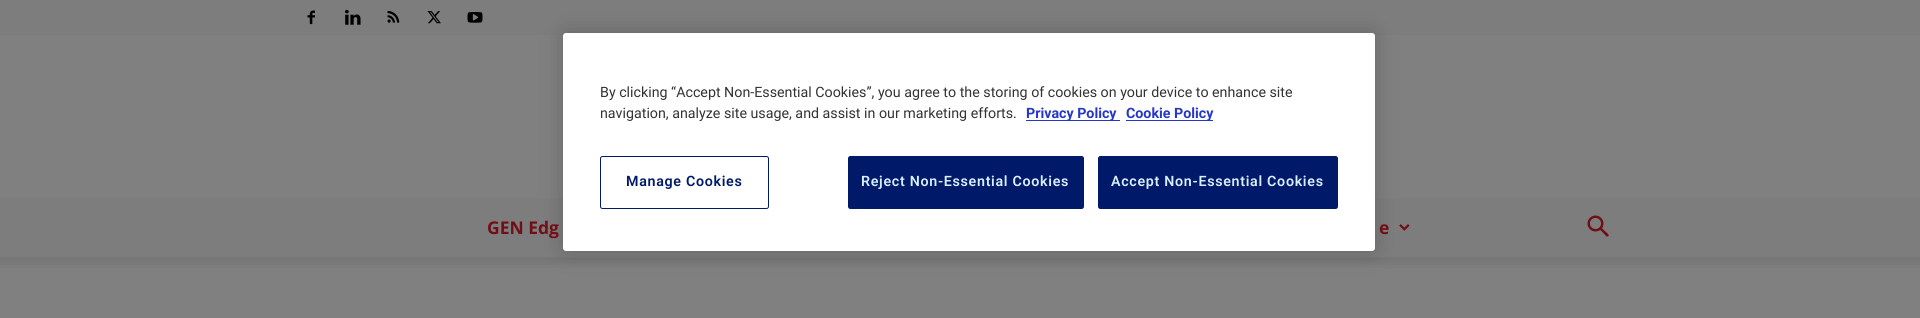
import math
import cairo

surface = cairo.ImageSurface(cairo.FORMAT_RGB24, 1920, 318)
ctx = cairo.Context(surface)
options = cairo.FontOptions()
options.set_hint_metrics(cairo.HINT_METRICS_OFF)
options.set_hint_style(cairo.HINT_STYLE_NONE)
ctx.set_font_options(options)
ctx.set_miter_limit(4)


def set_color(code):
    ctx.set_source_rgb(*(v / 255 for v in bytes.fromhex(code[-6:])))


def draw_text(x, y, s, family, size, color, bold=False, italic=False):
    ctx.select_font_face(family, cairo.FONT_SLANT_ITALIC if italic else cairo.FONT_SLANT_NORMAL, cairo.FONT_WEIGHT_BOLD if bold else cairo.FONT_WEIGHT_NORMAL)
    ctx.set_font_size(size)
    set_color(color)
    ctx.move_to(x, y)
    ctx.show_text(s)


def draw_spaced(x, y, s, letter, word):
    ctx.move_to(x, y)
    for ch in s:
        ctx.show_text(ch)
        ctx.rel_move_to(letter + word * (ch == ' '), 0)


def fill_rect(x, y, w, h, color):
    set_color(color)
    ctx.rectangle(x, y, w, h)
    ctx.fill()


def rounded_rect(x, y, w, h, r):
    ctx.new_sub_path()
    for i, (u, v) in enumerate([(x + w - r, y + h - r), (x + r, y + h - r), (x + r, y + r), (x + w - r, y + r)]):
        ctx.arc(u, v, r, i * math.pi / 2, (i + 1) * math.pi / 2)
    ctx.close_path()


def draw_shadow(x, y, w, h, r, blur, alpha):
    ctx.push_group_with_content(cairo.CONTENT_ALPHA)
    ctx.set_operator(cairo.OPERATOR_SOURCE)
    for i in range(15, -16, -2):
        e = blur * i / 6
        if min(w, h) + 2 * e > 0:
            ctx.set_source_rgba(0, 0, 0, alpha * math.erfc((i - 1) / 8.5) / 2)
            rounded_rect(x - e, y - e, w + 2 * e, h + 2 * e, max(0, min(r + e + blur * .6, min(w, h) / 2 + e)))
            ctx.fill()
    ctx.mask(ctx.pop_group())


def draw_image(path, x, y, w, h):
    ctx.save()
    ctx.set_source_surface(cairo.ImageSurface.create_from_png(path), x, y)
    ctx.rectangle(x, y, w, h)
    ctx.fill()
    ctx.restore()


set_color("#808080")
ctx.paint()
fill_rect(0, 0, 1920, 35, "#7d7d7d")
fill_rect(0, 198, 1920, 60, "#7d7d7d")
draw_image("assets/img6.png", 1399, 224, 11, 7)
draw_image("assets/img8.png", 0, 257, 1920, 11)
set_color("#000000")
draw_shadow(563, 33, 812, 218, 3, 11, 0.2)
set_color("#ffffff")
rounded_rect(563, 33, 812, 218, 3)
ctx.fill()
draw_text(600, 97, "By clicking “Accept Non-Essential Cookies”, you agree to the storing of cookies on your device to enhance site", "Roboto", 14.25, "#333333")
draw_text(600, 118, "navigation, analyze site usage, and assist in our marketing efforts.", "Roboto", 14.25, "#333333")
fill_rect(1026, 120, 94, 1, "#2537c6")
draw_text(1026, 118, "Privacy Policy", "Roboto", 14.25, "#2537c6", bold=True)
fill_rect(1126, 120, 87, 1, "#2537c6")
draw_text(1126, 118, "Cookie Policy", "Roboto", 14.25, "#2537c6", bold=True)
rounded_rect(600.5, 156.5, 168, 52, 2)
set_color("#001a69")
ctx.set_line_width(1)
ctx.stroke()
ctx.select_font_face("Roboto SemiBold")
draw_spaced(626, 186, "Manage Cookies", 0.7, 0)
rounded_rect(848.5, 156.5, 235, 52, 2)
ctx.fill_preserve()
ctx.stroke()
set_color("#d9eeff")
draw_spaced(861, 186, "Reject Non-Essential Cookies", 0.7, 0)
set_color("#001a69")
rounded_rect(1098.5, 156.5, 239, 52, 2)
ctx.fill_preserve()
ctx.stroke()
set_color("#d9eeff")
draw_spaced(1111, 186, "Accept Non-Essential Cookies", 0.7, 0)
draw_image("assets/img1.png", 307, 10, 8, 15)
draw_image("assets/img2.png", 345, 9, 16, 16)
draw_image("assets/img3.png", 387, 10, 13, 13)
draw_image("assets/img4.png", 427, 11, 14, 13)
draw_image("assets/img5.png", 467, 12, 16, 11)
draw_text(487, 234, "GEN Edg", "Open Sans", 17.5, "#710e16", bold=True)
draw_text(1379, 234, "e", "Open Sans", 17.5, "#710e16", bold=True)
draw_image("assets/img7.png", 1587, 215, 22, 22)
surface.write_to_png("output.png")
